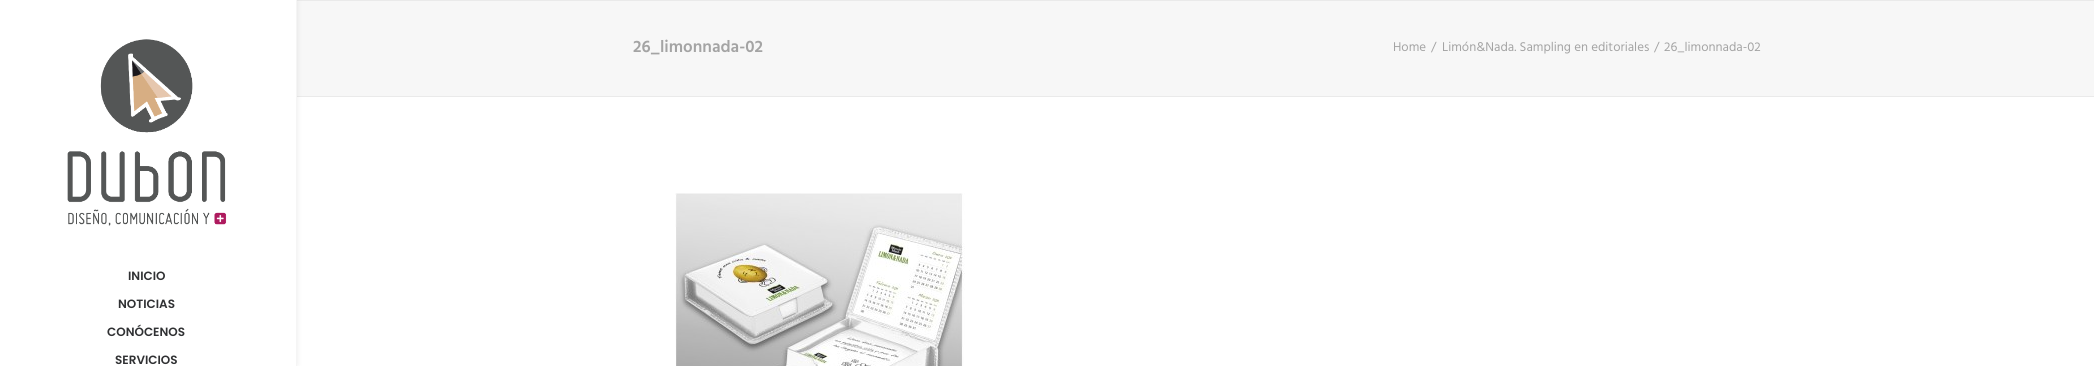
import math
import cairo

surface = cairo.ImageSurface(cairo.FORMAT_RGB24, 2094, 366)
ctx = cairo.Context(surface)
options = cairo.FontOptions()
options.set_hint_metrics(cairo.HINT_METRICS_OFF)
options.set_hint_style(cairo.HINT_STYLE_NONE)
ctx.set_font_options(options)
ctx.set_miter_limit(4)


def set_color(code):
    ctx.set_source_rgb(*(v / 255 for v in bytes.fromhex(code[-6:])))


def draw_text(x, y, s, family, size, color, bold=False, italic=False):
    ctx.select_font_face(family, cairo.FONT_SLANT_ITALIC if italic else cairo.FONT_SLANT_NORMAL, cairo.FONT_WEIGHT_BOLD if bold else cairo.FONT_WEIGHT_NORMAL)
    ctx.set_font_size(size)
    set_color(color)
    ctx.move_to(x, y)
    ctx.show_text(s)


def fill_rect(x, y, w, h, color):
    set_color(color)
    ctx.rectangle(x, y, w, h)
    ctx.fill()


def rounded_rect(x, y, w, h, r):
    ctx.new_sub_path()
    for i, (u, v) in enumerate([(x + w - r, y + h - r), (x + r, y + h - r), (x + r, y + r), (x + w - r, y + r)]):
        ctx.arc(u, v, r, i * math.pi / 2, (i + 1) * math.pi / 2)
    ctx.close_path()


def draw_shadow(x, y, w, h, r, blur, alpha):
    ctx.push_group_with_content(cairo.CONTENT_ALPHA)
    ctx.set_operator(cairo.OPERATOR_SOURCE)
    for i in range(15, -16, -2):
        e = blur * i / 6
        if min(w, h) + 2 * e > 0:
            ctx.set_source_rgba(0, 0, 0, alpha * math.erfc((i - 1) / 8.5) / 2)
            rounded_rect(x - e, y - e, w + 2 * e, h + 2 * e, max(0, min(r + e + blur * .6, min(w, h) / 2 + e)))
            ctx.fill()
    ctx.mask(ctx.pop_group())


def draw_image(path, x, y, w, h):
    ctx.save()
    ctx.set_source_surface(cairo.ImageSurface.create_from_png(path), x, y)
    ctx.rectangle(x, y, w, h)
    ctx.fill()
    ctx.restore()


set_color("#f7f7f7")
ctx.paint()
fill_rect(297, 0, 1797, 1, "#eaeaea")
fill_rect(297, 96, 1797, 1, "#eaeaea")
draw_text(633, 52, "26_limonnada-02", "Hind SemiBold", 17, "#a4a4a4")
draw_text(1393, 51, "Home", "Hind", 13, "#a4a4a4")
draw_text(1431, 51, "/", "Hind", 13, "#a4a4a4")
draw_text(1442, 51, "Limón&Nada. Sampling en editoriales", "Hind", 13, "#a4a4a4")
draw_text(1654, 51, "/", "Hind", 13, "#a4a4a4")
draw_text(1664, 51, "26_limonnada-02", "Hind", 13, "#a4a4a4")
fill_rect(297, 97, 1797, 269, "#ffffff")
draw_image("assets/img1.png", 675, 193, 290, 173)
set_color("#000000")
draw_shadow(-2, 1, 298, 364, 0, 3.5, 0.1)
fill_rect(0, 0, 296, 366, "#ffffff")
fill_rect(296, 0, 1, 366, "#f5f5f5")
draw_image("assets/img2.png", 67, 39, 160, 187)
draw_text(128, 280, "INICIO", "Poppins SemiBold", 12, "#303133")
draw_text(118, 308, "NOTICIAS", "Poppins SemiBold", 12, "#303133")
draw_text(107, 336, "CONÓCENOS", "Poppins SemiBold", 12, "#303133")
draw_text(115, 364, "SERVICIOS", "Poppins SemiBold", 12, "#303133")
surface.write_to_png("output.png")
